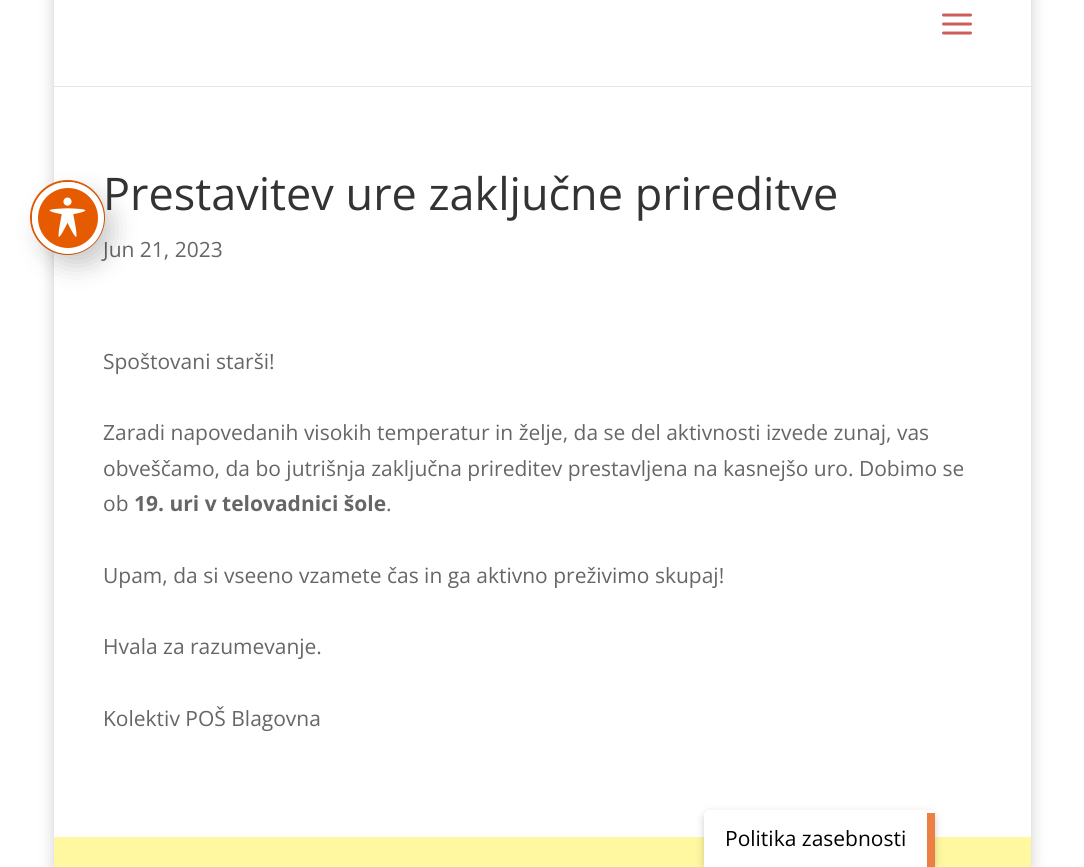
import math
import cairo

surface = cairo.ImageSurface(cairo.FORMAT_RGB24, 1084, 867)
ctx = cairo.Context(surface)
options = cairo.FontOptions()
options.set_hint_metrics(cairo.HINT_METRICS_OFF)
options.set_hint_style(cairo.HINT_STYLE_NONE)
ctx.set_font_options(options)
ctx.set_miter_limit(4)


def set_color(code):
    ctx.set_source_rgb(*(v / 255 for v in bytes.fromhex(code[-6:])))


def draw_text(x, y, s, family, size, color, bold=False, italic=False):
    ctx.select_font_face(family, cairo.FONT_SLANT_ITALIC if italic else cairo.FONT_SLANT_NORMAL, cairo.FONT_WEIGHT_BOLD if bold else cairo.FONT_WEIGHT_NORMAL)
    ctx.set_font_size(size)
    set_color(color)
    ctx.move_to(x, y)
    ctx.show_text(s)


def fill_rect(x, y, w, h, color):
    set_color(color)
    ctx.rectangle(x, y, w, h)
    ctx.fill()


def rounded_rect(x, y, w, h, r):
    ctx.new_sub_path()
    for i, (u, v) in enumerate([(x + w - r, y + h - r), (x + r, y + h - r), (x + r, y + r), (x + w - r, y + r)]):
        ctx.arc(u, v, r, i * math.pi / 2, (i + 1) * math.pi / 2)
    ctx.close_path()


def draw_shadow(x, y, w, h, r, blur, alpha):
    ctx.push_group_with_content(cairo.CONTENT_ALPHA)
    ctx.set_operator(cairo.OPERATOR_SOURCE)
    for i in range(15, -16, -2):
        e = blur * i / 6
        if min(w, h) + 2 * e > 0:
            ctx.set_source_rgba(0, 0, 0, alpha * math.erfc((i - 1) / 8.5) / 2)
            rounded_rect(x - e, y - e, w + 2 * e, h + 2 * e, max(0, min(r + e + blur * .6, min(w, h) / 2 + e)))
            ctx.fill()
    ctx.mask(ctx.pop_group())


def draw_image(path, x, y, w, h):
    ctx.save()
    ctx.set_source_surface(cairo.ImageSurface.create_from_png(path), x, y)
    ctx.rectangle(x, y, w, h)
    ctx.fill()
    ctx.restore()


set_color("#ffffff")
ctx.paint()
ctx.save()
ctx.set_fill_rule(cairo.FILL_RULE_EVEN_ODD)
ctx.new_path()
ctx.move_to(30, 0)
ctx.line_to(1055, 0)
ctx.line_to(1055, 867)
ctx.line_to(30, 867)
ctx.close_path()
ctx.move_to(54, -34)
ctx.line_to(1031, -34)
ctx.line_to(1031, 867)
ctx.line_to(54, 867)
ctx.close_path()
ctx.clip()
set_color("#000000")
draw_shadow(54, -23, 977, 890, 0, 7.5, 0.2)
ctx.restore()
draw_text(103, 257, "Jun 21, 2023", "Open Sans", 21, "#666666")
ctx.new_path()
ctx.arc(67.5, 217.5, 36.5, 0, 2 * math.pi)
set_color("#e65a00")
ctx.stroke()
set_color("#000000")
draw_shadow(41, 194, 72, 72, 36, 12, 0.2)
set_color("#e65a00")
ctx.arc(68, 218, 33, 0, 2 * math.pi)
ctx.fill_preserve()
set_color("#ffffff")
ctx.set_line_width(6)
ctx.stroke()
draw_image("assets/img1.png", 49, 197, 37, 40)
fill_rect(1030, 86, 1, 688, "#ffffff")
ctx.set_source_rgba(0, 0, 0, 0.1)
ctx.new_path()
ctx.move_to(54, 86)
ctx.line_to(54, 87)
ctx.line_to(1031, 87)
ctx.line_to(1031, -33)
ctx.line_to(1030, -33)
ctx.line_to(1030, 86)
ctx.close_path()
ctx.fill()
fill_rect(1030, 0, 1, 86, "#ffffff")
draw_image("assets/img2.png", 942, 13, 30, 22)
draw_text(103, 210, "Prestavitev ure zaključne prireditve", "Open Sans", 45, "#333333")
draw_text(103, 369, "Spoštovani starši!", "Open Sans", 21, "#666666")
draw_text(103, 440, "Zaradi napovedanih visokih temperatur in želje, da se del aktivnosti izvede zunaj, vas", "Open Sans", 21, "#666666")
draw_text(103, 476, "obveščamo, da bo jutrišnja zaključna prireditev prestavljena na kasnejšo uro. Dobimo se", "Open Sans", 21, "#666666")
draw_text(103, 511, "ob", "Open Sans", 21, "#666666")
draw_text(134, 511, "19. uri v telovadnici šole", "Open Sans", 21, "#666666", bold=True)
draw_text(386, 511, ".", "Open Sans", 21, "#666666")
draw_text(103, 583, "Upam, da si vseeno vzamete čas in ga aktivno preživimo skupaj!", "Open Sans", 21, "#666666")
draw_text(103, 654, "Hvala za razumevanje.", "Open Sans", 21, "#666666")
draw_text(103, 726, "Kolektiv POŠ Blagovna", "Open Sans", 21, "#666666")
fill_rect(54, 837, 977, 30, "#fff8a0")
set_color("#000000")
draw_shadow(704, 813, 231, 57, 6, 4, 0.2)
set_color("#ffffff")
ctx.new_path()
ctx.move_to(710, 810)
ctx.line_to(929, 810)
ctx.curve_to(932.5, 810, 935, 812.5, 935, 816)
ctx.line_to(935, 867)
ctx.line_to(704, 867)
ctx.line_to(704, 816)
ctx.curve_to(704, 812.5, 706.5, 810, 710, 810)
ctx.close_path()
ctx.fill()
fill_rect(927, 813, 8, 54, "#ec7f43")
draw_text(725, 846, "Politika zasebnosti", "Open Sans", 21, "#000000")
surface.write_to_png("output.png")
